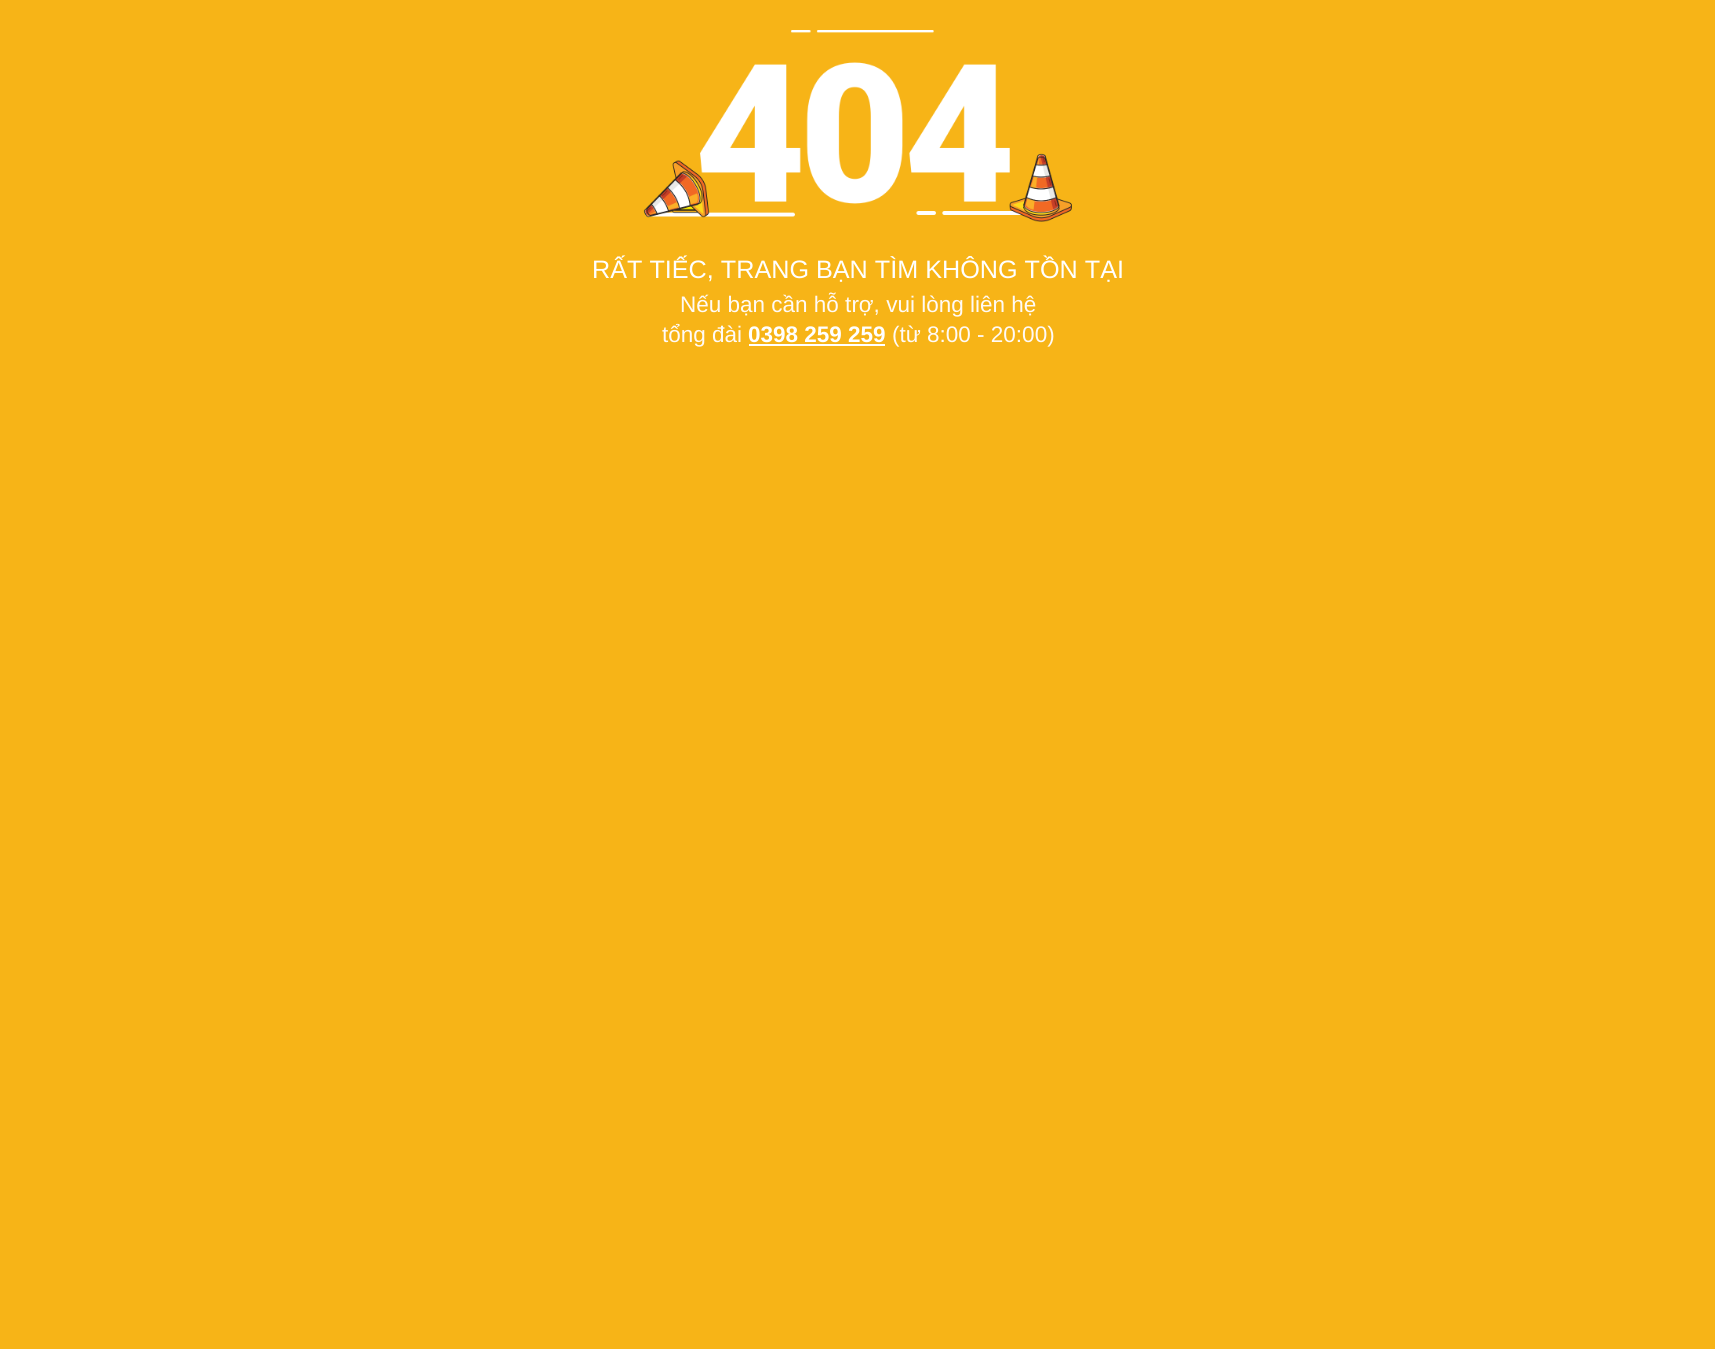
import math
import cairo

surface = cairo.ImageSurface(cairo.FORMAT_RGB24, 1715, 1349)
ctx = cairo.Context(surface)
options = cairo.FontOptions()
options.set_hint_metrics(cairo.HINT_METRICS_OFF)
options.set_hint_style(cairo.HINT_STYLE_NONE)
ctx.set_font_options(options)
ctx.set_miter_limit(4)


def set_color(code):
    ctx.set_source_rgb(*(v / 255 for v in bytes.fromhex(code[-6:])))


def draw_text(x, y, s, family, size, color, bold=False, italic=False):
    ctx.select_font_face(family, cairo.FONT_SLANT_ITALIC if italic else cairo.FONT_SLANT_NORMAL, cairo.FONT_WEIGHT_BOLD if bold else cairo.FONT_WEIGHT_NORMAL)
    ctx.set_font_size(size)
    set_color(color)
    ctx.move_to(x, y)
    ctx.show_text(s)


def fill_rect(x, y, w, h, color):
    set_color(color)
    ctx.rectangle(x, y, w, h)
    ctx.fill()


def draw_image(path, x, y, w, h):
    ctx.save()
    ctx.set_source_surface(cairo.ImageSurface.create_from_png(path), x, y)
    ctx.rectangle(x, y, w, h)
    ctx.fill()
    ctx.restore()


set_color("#f7b417")
ctx.paint()
draw_image("assets/img1.png", 643, 30, 429, 192)
draw_text(592, 278, "RẤT TIẾC, TRANG BẠN TÌM KHÔNG TỒN TẠI", "Liberation Sans", 25.2, "#ffffff")
draw_text(680, 312, "Nếu bạn cần hỗ trợ, vui lòng liên hệ", "Liberation Sans", 22.5, "#fffaf6")
draw_text(662, 342, "tổng đài", "Liberation Sans", 22.5, "#fffaf6")
draw_text(748, 342, "0398 259 259", "Liberation Sans", 22.5, "#ffffff", bold=True)
fill_rect(749, 344, 136, 2, "#ffffff")
draw_text(892, 342, "(từ 8:00 - 20:00)", "Liberation Sans", 22.5, "#fffaf6")
surface.write_to_png("output.png")
